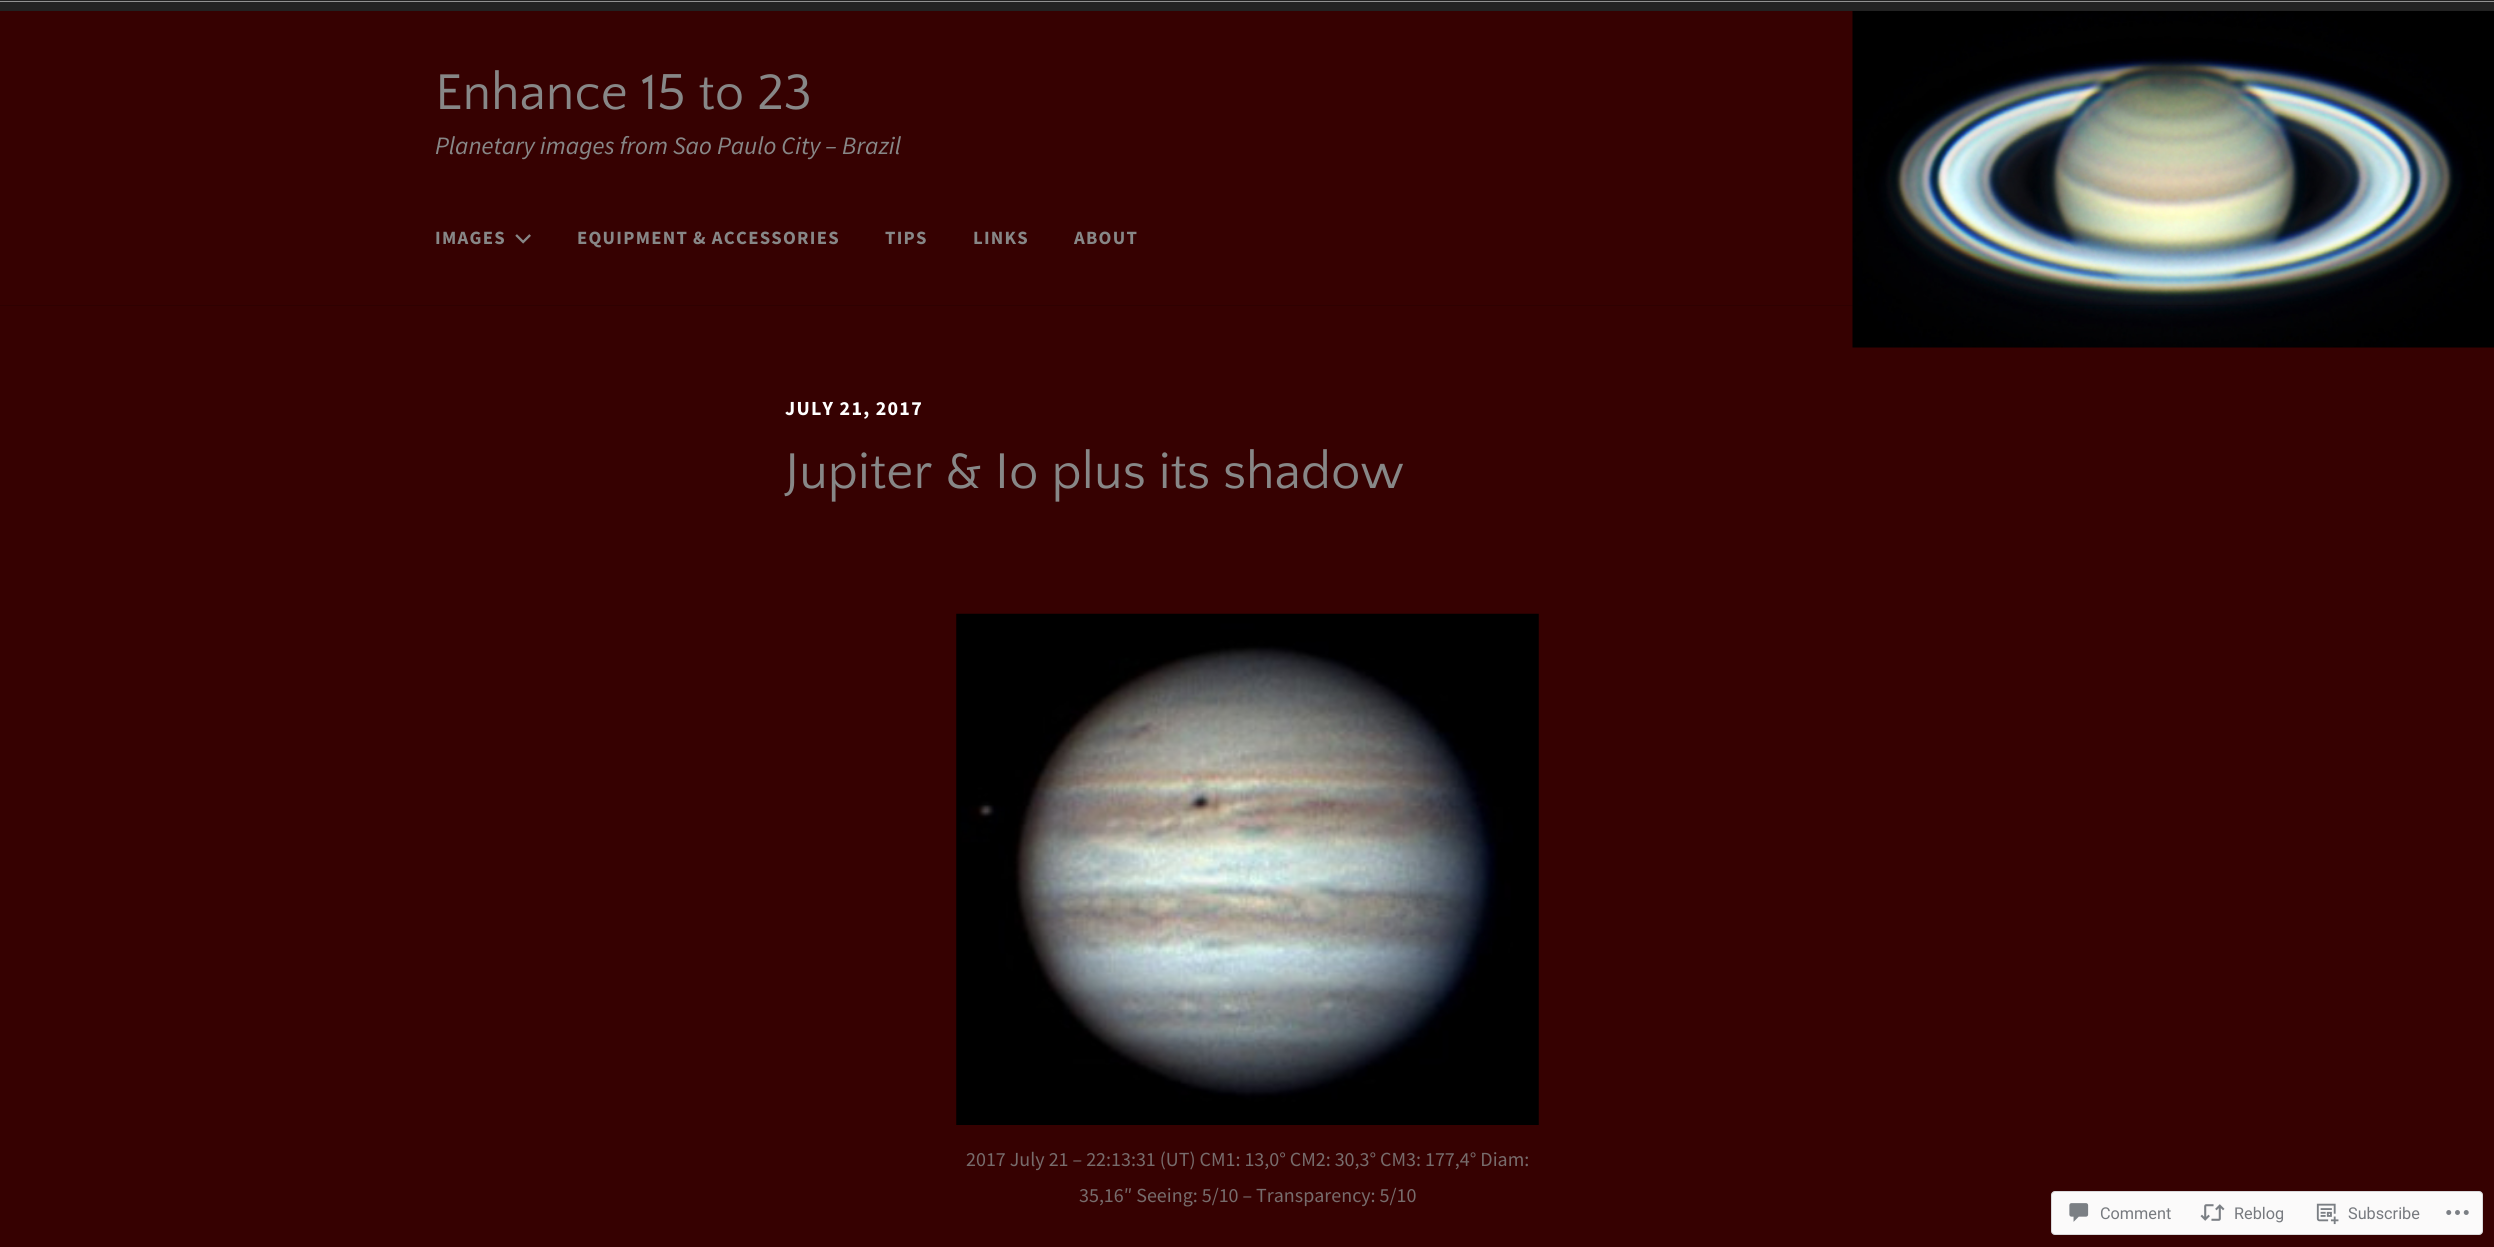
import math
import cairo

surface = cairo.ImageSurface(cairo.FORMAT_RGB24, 2494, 1247)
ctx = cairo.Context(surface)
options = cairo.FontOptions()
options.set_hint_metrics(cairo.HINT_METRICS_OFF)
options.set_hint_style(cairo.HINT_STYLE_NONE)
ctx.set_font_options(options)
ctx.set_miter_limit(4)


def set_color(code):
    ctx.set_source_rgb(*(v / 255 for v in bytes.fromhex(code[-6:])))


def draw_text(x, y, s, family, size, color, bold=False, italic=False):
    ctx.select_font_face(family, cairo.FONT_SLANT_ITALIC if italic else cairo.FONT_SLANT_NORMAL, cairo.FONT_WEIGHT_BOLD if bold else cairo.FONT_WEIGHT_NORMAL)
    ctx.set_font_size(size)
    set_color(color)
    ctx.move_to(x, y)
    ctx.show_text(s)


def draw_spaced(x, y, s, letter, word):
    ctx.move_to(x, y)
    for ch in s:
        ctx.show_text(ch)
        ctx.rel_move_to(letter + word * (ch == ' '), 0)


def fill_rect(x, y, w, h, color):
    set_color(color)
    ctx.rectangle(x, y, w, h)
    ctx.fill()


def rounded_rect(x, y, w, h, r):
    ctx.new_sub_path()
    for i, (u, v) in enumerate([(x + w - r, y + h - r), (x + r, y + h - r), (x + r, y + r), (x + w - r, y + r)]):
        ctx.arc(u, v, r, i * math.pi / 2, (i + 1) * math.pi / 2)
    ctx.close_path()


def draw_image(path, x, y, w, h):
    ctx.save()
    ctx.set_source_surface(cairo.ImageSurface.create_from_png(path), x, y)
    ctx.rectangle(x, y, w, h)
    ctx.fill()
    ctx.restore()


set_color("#360101")
ctx.paint()
draw_image("assets/img1.png", 1852, 11, 642, 337)
fill_rect(0, 0, 2494, 11, "#222222")
ctx.set_source_rgba(0, 0, 0, 0.15)
ctx.rectangle(0, 305, 2227, 1)
ctx.fill()
fill_rect(0, 1, 2494, 1, "#919191")
draw_text(435, 109, "Enhance 15 to 23", "Quattrocento Sans", 52.5, "#878787")
draw_text(435, 154, "Planetary images from Sao Paulo City – Brazil", "Source Sans Pro", 25, "#878787", italic=True)
ctx.select_font_face("Source Sans Pro", cairo.FONT_SLANT_NORMAL, cairo.FONT_WEIGHT_BOLD)
ctx.set_font_size(18.75)
draw_spaced(435, 244, "IMAGES", 1.25, 0)
draw_image("assets/img2.png", 515, 234, 16, 10)
draw_spaced(577, 244, "EQUIPMENT & ACCESSORIES", 1.25, 0)
draw_spaced(885, 244, "TIPS", 1.25, 0)
draw_spaced(973, 244, "LINKS", 1.25, 0)
draw_spaced(1074, 244, "ABOUT", 1.25, 0)
ctx.set_font_size(20)
set_color("#ffffff")
draw_spaced(785, 415, "JULY 21, 2017", 1.25, 0)
draw_text(785, 488, "Jupiter & Io plus its shadow", "Quattrocento Sans", 52.5, "#878787")
draw_image("assets/img3.png", 956, 613, 583, 512)
draw_text(966, 1166, "2017 July 21 – 22:13:31 (UT) CM1: 13,0° CM2: 30,3° CM3: 177,4° Diam:", "Source Sans Pro", 20, "#776c6c")
draw_text(1079, 1202, "35,16″ Seeing: 5/10 – Transparency: 5/10", "Source Sans Pro", 20, "#776c6c")
set_color("#fbfafa")
rounded_rect(2051.5, 1191.5, 431, 43, 3.5)
ctx.fill_preserve()
set_color("#d9d8da")
ctx.set_line_width(1)
ctx.stroke()
draw_image("assets/img4.png", 2069, 1203, 20, 19)
draw_text(2100, 1219, "Comment", "Roboto", 16.25, "#777a7f")
draw_image("assets/img5.png", 2200, 1204, 25, 17)
draw_text(2234, 1219, "Reblog", "Roboto", 16.25, "#777a7f")
draw_image("assets/img6.png", 2316, 1203, 23, 22)
draw_text(2348, 1219, "Subscribe", "Roboto", 16.25, "#777a7f")
draw_image("assets/img7.png", 2446, 1210, 23, 5)
surface.write_to_png("output.png")
